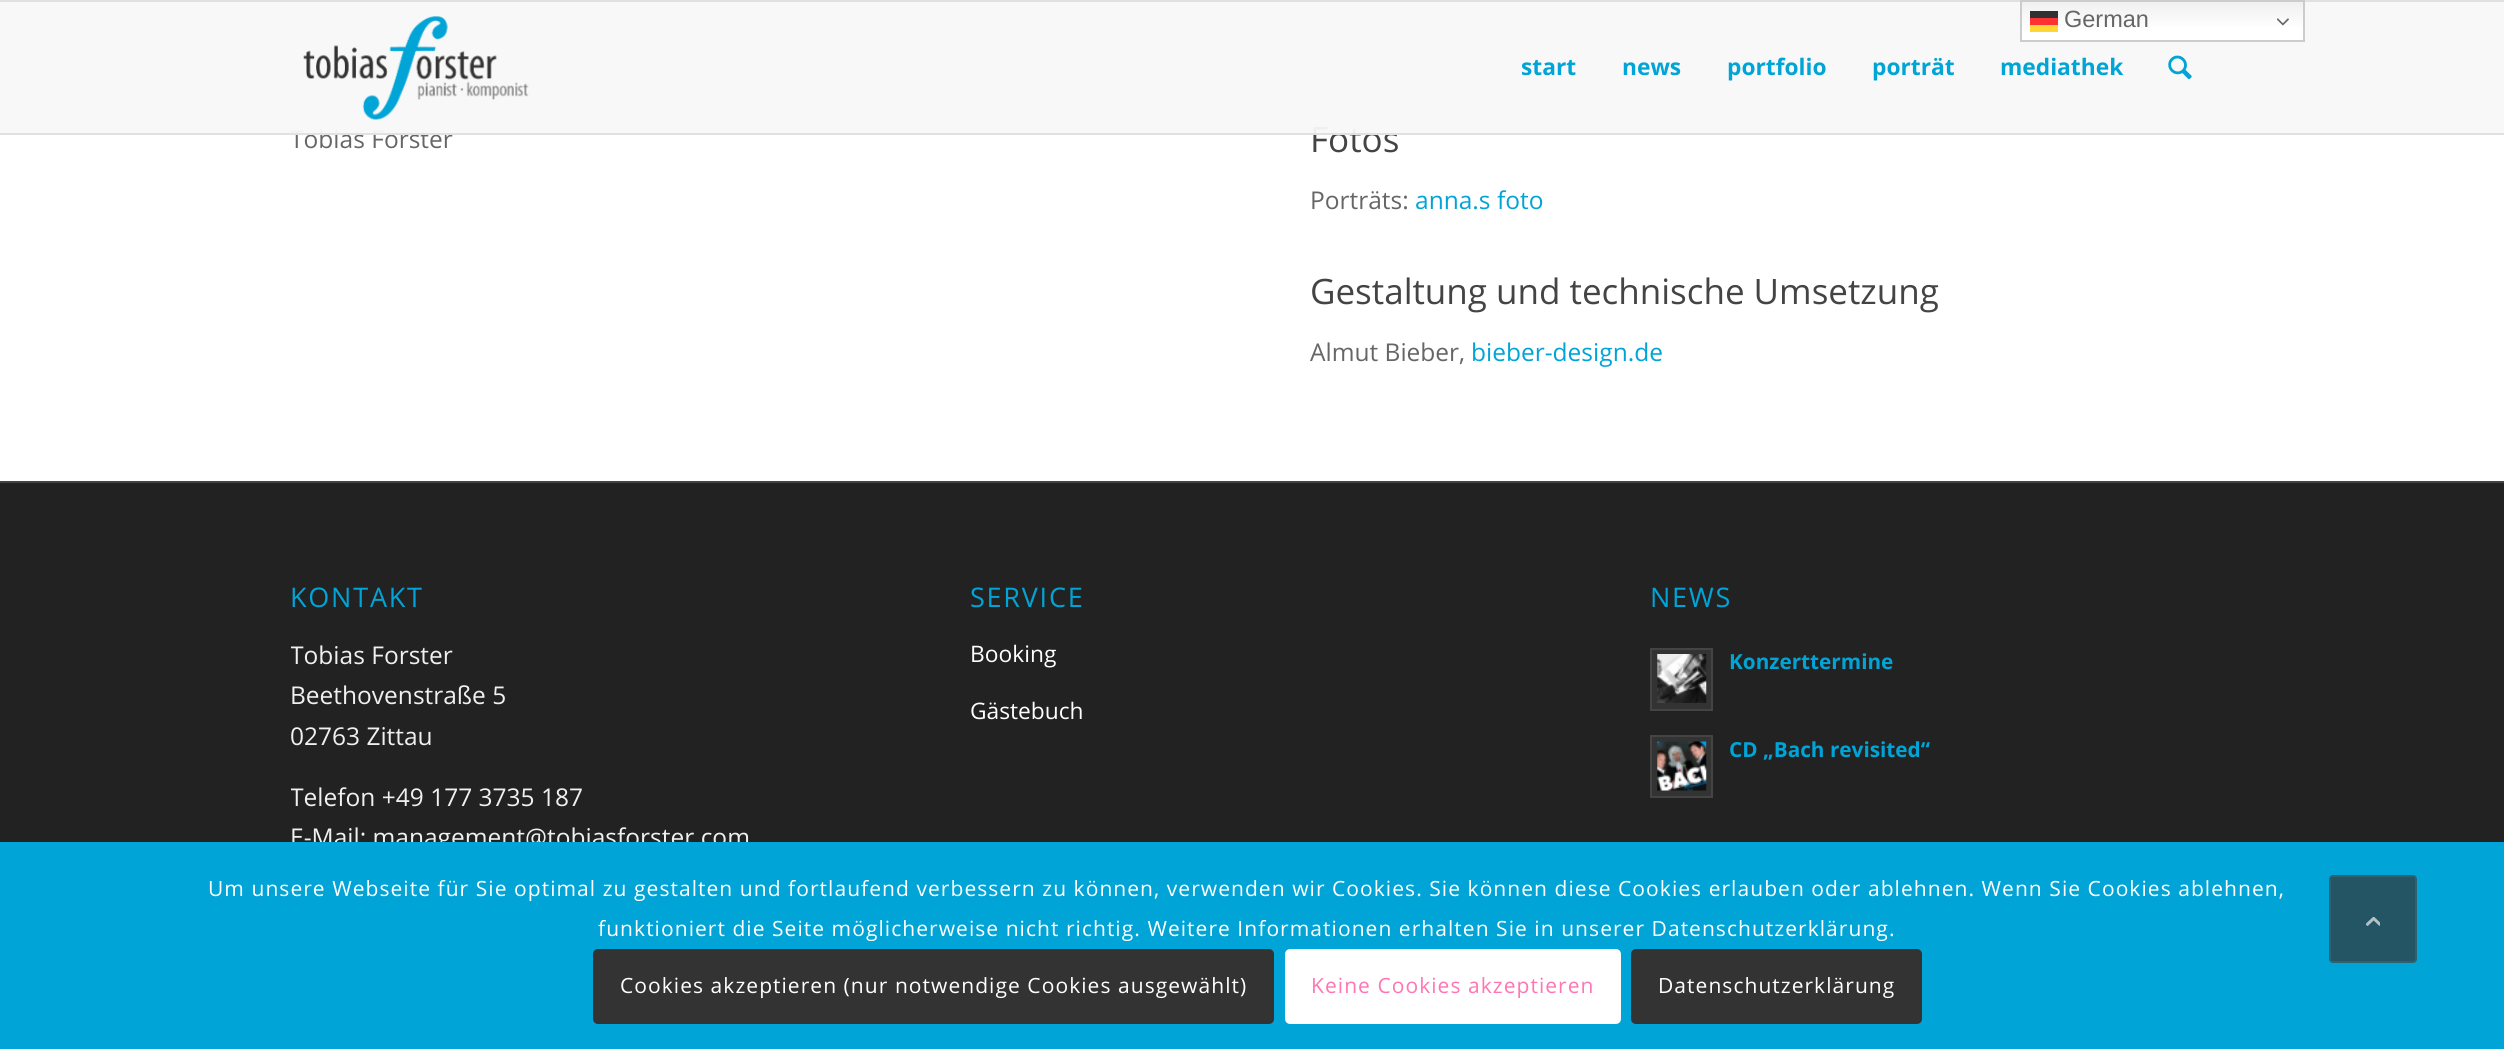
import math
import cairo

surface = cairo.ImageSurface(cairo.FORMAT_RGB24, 2504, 1049)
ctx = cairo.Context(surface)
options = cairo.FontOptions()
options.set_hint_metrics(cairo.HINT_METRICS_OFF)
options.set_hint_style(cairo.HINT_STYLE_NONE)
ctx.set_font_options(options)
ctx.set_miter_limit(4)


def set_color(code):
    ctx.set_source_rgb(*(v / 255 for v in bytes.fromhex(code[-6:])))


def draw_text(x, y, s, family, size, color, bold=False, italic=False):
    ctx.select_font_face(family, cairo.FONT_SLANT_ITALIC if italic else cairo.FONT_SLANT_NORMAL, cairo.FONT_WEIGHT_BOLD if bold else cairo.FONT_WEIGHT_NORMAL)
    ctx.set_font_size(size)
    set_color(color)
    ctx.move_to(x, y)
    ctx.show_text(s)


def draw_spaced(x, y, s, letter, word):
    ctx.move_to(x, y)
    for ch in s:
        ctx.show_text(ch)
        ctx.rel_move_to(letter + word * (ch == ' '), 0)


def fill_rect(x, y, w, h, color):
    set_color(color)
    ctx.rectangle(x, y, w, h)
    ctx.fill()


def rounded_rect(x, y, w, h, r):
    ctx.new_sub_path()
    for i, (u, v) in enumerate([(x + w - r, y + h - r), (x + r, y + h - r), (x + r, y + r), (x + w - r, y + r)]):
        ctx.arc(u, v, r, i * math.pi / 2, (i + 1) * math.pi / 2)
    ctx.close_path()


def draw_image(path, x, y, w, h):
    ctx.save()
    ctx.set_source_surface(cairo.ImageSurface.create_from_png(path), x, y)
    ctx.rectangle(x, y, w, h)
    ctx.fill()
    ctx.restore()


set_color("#ffffff")
ctx.paint()
draw_text(290, 148, "Tobias Forster", "Open Sans", 24.5, "#666666")
draw_text(1310, 152, "Fotos", "Open Sans", 35, "#444444")
ctx.set_source_rgba(0.973, 0.973, 0.973, 0.95)
ctx.rectangle(0, 2, 2504, 131)
ctx.fill()
gradient = cairo.LinearGradient(2162, 0, 2162, 42)
gradient.add_color_stop_rgba(0, 0.937, 0.937, 0.937, 1)
gradient.add_color_stop_rgba(0.7, 1, 1, 1, 1)
ctx.set_source(gradient)
ctx.rectangle(2022, 2, 281, 38)
ctx.fill()
fill_rect(0, 0, 2504, 2, "#e1e1e1")
ctx.rectangle(2021, 1, 283, 40)
set_color("#cccccc")
ctx.stroke()
ctx.set_source_rgba(0, 0, 0, 0.8)
ctx.rectangle(2030, 11, 28, 7)
ctx.fill()
draw_text(2064, 27, "German", "Liberation Sans", 23.5, "#666666")
ctx.set_source_rgba(1, 0, 0, 0.8)
ctx.rectangle(2030, 18, 28, 7)
ctx.fill()
draw_image("assets/img1.png", 2277, 18, 12, 8)
fill_rect(2030, 25, 28, 7, "#ffd633")
fill_rect(0, 133, 2504, 2, "#e1e1e1")
draw_image("assets/img2.png", 303, 16, 226, 104)
draw_text(1521, 75, "start", "Open Sans", 22.75, "#01a4d6", bold=True)
draw_text(1622, 75, "news", "Open Sans", 22.75, "#01a4d6", bold=True)
draw_text(1727, 75, "portfolio", "Open Sans", 22.75, "#01a4d6", bold=True)
draw_text(1872, 75, "porträt", "Open Sans", 22.75, "#01a4d6", bold=True)
draw_text(2000, 75, "mediathek", "Open Sans", 22.75, "#01a4d6", bold=True)
draw_image("assets/img3.png", 2168, 55, 24, 25)
draw_text(1310, 209, "Porträts:", "Open Sans", 24.5, "#666666")
draw_text(1415, 209, "anna.s foto", "Open Sans", 24.5, "#01a4d6")
draw_text(1310, 304, "Gestaltung und technische Umsetzung", "Open Sans", 35, "#444444")
draw_text(1310, 361, "Almut Bieber,", "Open Sans", 24.5, "#666666")
draw_text(1471, 361, "bieber-design.de", "Open Sans", 24.5, "#01a4d6")
fill_rect(0, 483, 2504, 359, "#222222")
fill_rect(0, 481, 2504, 2, "#444444")
ctx.set_font_size(27)
set_color("#01a4d6")
draw_spaced(290, 607, "KONTAKT", 1.75, 0)
ctx.save()
ctx.rectangle(291, 562, 563, 317)
ctx.clip()
draw_text(290, 664, "Tobias Forster", "Open Sans", 24.5, "#f0f0f0")
ctx.restore()
draw_text(290, 704, "Beethovenstraße 5", "Open Sans", 24.5, "#f0f0f0")
ctx.save()
ctx.rectangle(291, 562, 563, 317)
ctx.clip()
draw_text(290, 745, "02763 Zittau", "Open Sans", 24.5, "#f0f0f0")
draw_text(290, 806, "Telefon +49 177 3735 187", "Open Sans", 24.5, "#f0f0f0")
ctx.restore()
draw_text(290, 846, "E-Mail: management@tobiasforster.com", "Open Sans", 24.5, "#f0f0f0")
ctx.set_font_size(27)
set_color("#01a4d6")
draw_spaced(970, 607, "SERVICE", 1.75, 0)
draw_text(970, 662, "Booking", "Open Sans", 22.75, "#ffffff")
draw_text(970, 719, "Gästebuch", "Open Sans", 22.75, "#ffffff")
ctx.set_font_size(27)
set_color("#01a4d6")
draw_spaced(1650, 607, "NEWS", 1.75, 0)
set_color("#333333")
ctx.rectangle(1651, 649, 61, 61)
ctx.fill_preserve()
set_color("#444444")
ctx.stroke()
draw_image("assets/img4.png", 1657, 654, 50, 49)
draw_text(1729, 669, "Konzerttermine", "Open Sans", 20.75, "#01a4d6", bold=True)
set_color("#333333")
ctx.rectangle(1651, 736, 61, 61)
ctx.fill_preserve()
set_color("#444444")
ctx.stroke()
draw_image("assets/img5.png", 1657, 741, 50, 50)
draw_text(1729, 757, "CD „Bach revisited“", "Open Sans", 20.75, "#01a4d6", bold=True)
fill_rect(0, 842, 2504, 207, "#01a4d6")
ctx.select_font_face("Open Sans")
ctx.set_font_size(21)
set_color("#ffffff")
draw_spaced(208, 896, "Um unsere Webseite für Sie optimal zu gestalten und fortlaufend verbessern zu können, verwenden wir Cookies. Sie können diese Cookies erlauben oder ablehnen. Wenn Sie Cookies ablehnen,", 1.05, 0)
draw_spaced(598, 936, "funktioniert die Seite möglicherweise nicht richtig. Weitere Informationen erhalten Sie in unserer Datenschutzerklärung.", 1.05, 0)
set_color("#333333")
rounded_rect(593, 949, 681, 75, 5)
ctx.fill()
set_color("#ffffff")
draw_spaced(620, 993, "Cookies akzeptieren (nur notwendige Cookies ausgewählt)", 1.05, 0)
rounded_rect(1287, 951, 332, 71, 3)
ctx.fill_preserve()
ctx.set_line_width(4)
ctx.stroke()
set_color("#ff75b5")
draw_spaced(1311, 993, "Keine Cookies akzeptieren", 1.05, 0)
set_color("#333333")
rounded_rect(1631, 949, 291, 75, 5)
ctx.fill()
set_color("#ffffff")
draw_spaced(1658, 993, "Datenschutzerklärung", 1.05, 0)
set_color("#245564")
rounded_rect(2330, 876, 86, 86, 3)
ctx.fill_preserve()
set_color("#306170")
ctx.set_line_width(2)
ctx.stroke()
draw_image("assets/img6.png", 2366, 916, 14, 10)
surface.write_to_png("output.png")
